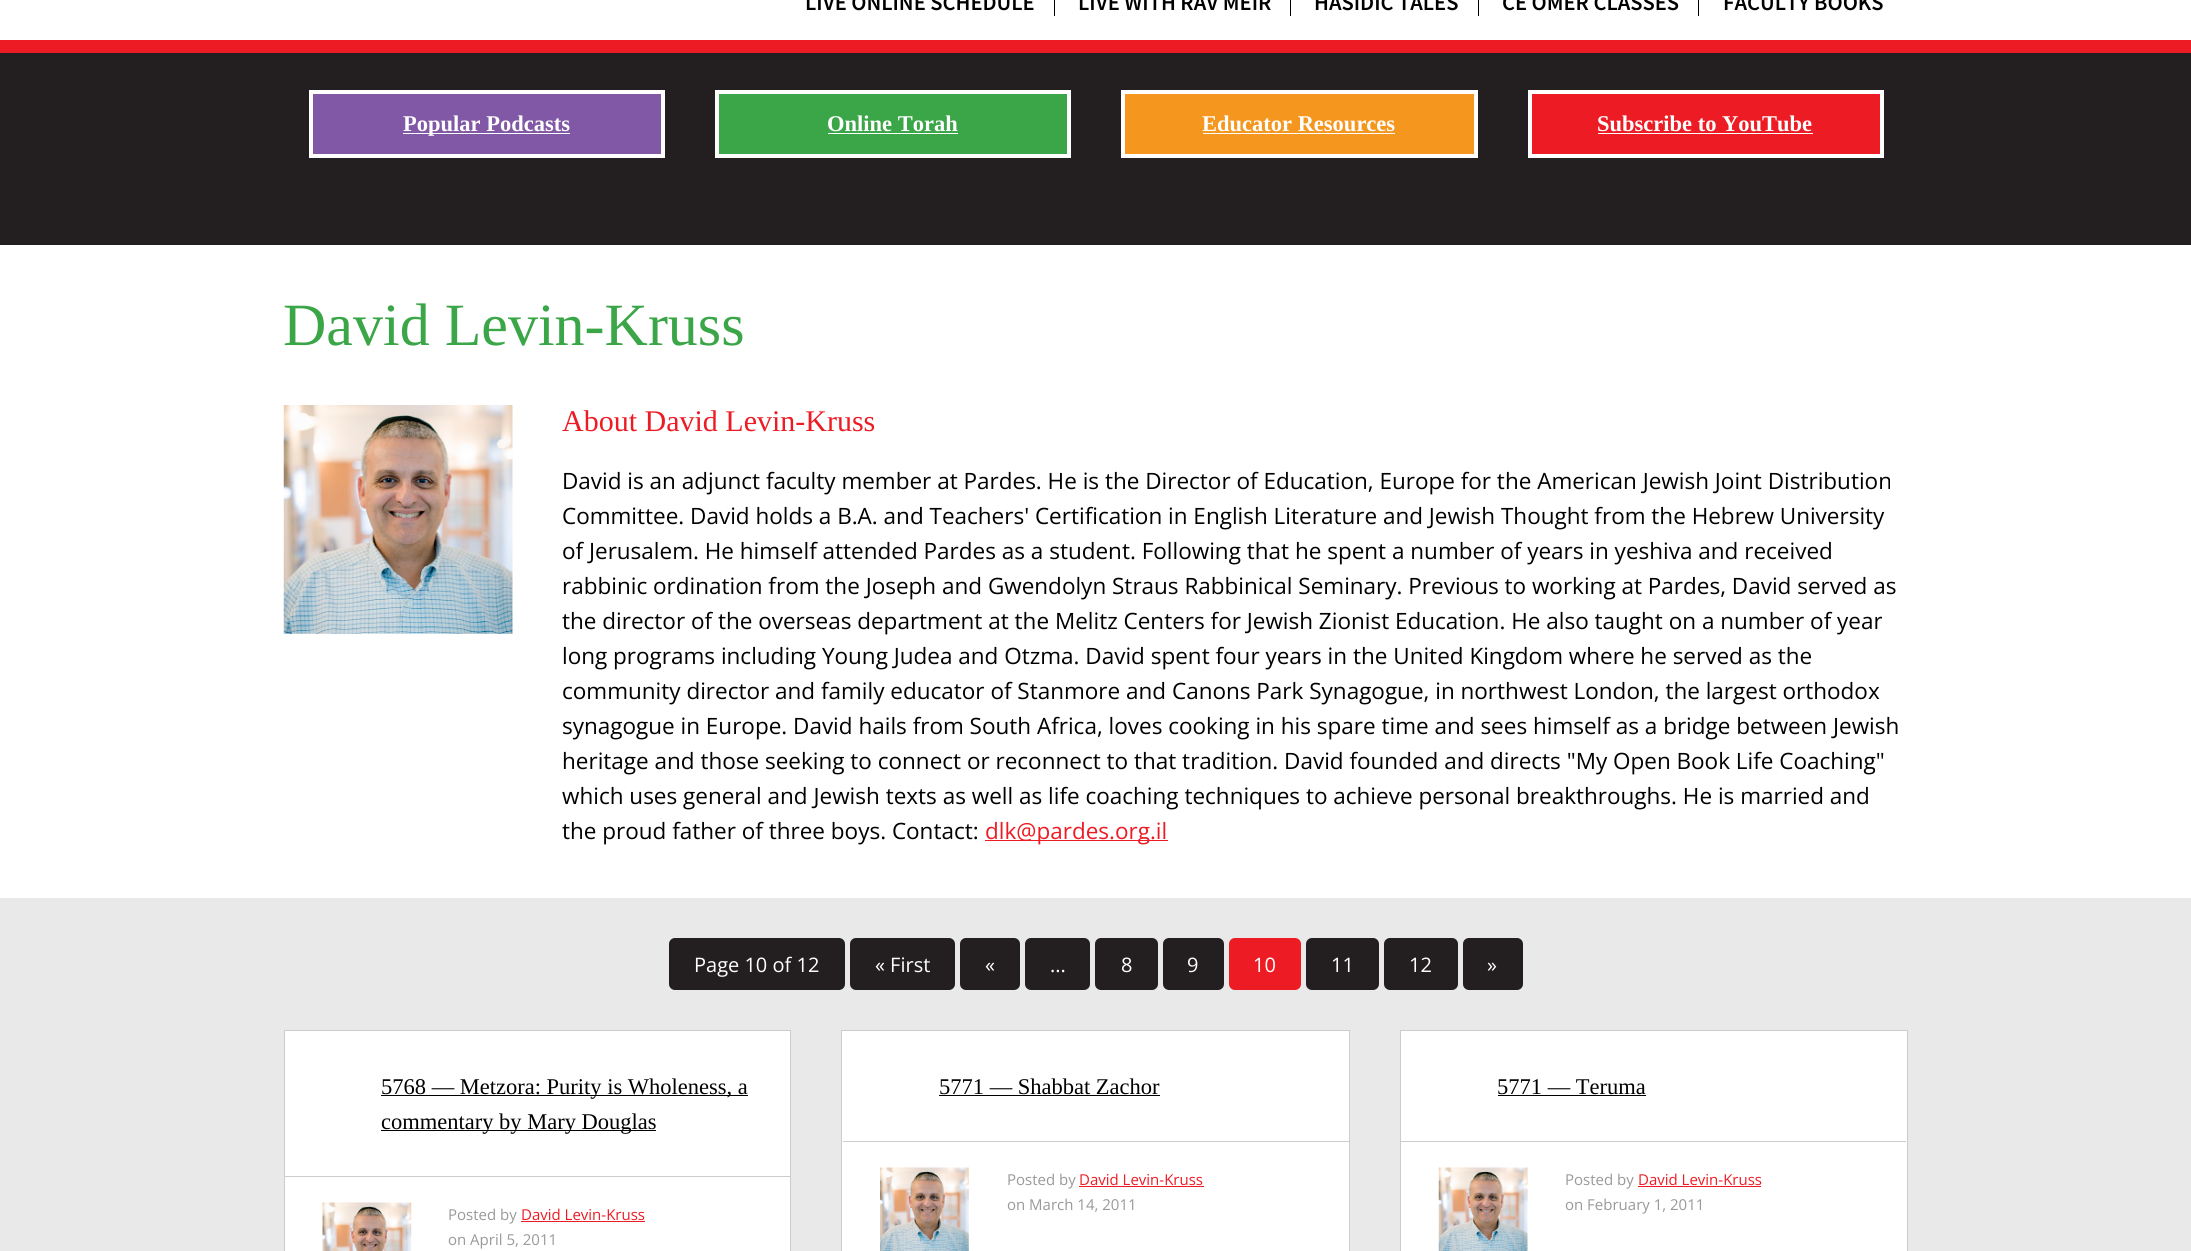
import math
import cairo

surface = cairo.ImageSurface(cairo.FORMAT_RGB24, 2191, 1251)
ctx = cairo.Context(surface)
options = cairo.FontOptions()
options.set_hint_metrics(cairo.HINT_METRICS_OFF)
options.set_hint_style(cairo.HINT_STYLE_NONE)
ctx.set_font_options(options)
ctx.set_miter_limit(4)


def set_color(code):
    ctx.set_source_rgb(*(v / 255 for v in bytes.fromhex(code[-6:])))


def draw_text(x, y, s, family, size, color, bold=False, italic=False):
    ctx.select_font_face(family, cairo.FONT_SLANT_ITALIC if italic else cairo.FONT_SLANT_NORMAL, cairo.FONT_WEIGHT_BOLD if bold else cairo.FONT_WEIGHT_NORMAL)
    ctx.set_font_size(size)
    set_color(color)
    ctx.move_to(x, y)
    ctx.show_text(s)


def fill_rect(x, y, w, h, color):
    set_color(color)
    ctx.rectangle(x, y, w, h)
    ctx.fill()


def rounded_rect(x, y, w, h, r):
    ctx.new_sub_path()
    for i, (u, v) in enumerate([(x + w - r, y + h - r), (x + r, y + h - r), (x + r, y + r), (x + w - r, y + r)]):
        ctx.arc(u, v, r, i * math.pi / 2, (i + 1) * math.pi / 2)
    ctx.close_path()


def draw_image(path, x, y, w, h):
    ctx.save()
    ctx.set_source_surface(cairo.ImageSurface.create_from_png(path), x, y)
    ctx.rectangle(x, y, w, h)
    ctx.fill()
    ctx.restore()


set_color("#231f20")
ctx.paint()
fill_rect(0, 0, 2191, 40, "#ffffff")
fill_rect(0, 40, 2191, 13, "#ed1c24")
draw_text(805, 10, "LIVE ONLINE SCHEDULE", "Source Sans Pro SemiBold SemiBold", 22.5, "#000000")
fill_rect(1054, 0, 1, 16, "#000000")
draw_text(1078, 10, "LIVE WITH RAV MEIR", "Source Sans Pro SemiBold SemiBold", 22.5, "#000000")
fill_rect(1290, 0, 1, 16, "#000000")
draw_text(1314, 10, "HASIDIC TALES", "Source Sans Pro SemiBold SemiBold", 22.5, "#000000")
fill_rect(1478, 0, 1, 16, "#000000")
draw_text(1502, 10, "CE OMER CLASSES", "Source Sans Pro SemiBold SemiBold", 22.5, "#000000")
fill_rect(1698, 0, 1, 16, "#000000")
draw_text(1723, 10, "FACULTY BOOKS", "Source Sans Pro SemiBold SemiBold", 22.5, "#000000")
set_color("#8158a5")
ctx.rectangle(311, 92, 352, 64)
ctx.fill_preserve()
set_color("#ffffff")
ctx.set_line_width(4)
ctx.stroke()
fill_rect(403, 133, 167, 1, "#ffffff")
draw_text(403, 131, "Popular Podcasts", "Liberation Serif", 22.5, "#ffffff", bold=True)
set_color("#3aa648")
ctx.rectangle(717, 92, 352, 64)
ctx.fill_preserve()
set_color("#ffffff")
ctx.stroke()
draw_text(827, 131, "Online Torah", "Liberation Serif", 22.5, "#ffffff", bold=True)
fill_rect(828, 133, 130, 1, "#ffffff")
set_color("#f5971e")
ctx.rectangle(1123, 92, 353, 64)
ctx.fill_preserve()
set_color("#ffffff")
ctx.stroke()
draw_text(1202, 131, "Educator Resources", "Liberation Serif", 22.5, "#ffffff", bold=True)
fill_rect(1203, 133, 192, 1, "#ffffff")
set_color("#ed1c24")
ctx.rectangle(1530, 92, 352, 64)
ctx.fill_preserve()
set_color("#ffffff")
ctx.stroke()
draw_text(1597, 131, "Subscribe to YouTube", "Liberation Serif", 22.5, "#ffffff", bold=True)
fill_rect(1598, 133, 215, 1, "#ffffff")
fill_rect(0, 245, 2191, 653, "#ffffff")
draw_text(283, 345, "David Levin-Kruss", "Liberation Serif", 60, "#3aa648")
draw_image("assets/img1.png", 283, 405, 230, 229)
draw_text(562, 431, "About David Levin-Kruss", "Liberation Serif", 30, "#ed1c24")
draw_text(562, 489, "David is an adjunct faculty member at Pardes. He is the Director of Education, Europe for the American Jewish Joint Distribution", "Open Sans", 22.5, "#000000")
draw_text(562, 524, "Committee. David holds a B.A. and Teachers' Certification in English Literature and Jewish Thought from the Hebrew University", "Open Sans", 22.5, "#000000")
draw_text(562, 559, "of Jerusalem. He himself attended Pardes as a student. Following that he spent a number of years in yeshiva and received", "Open Sans", 22.5, "#000000")
draw_text(562, 594, "rabbinic ordination from the Joseph and Gwendolyn Straus Rabbinical Seminary. Previous to working at Pardes, David served as", "Open Sans", 22.5, "#000000")
draw_text(562, 629, "the director of the overseas department at the Melitz Centers for Jewish Zionist Education. He also taught on a number of year", "Open Sans", 22.5, "#000000")
draw_text(562, 664, "long programs including Young Judea and Otzma. David spent four years in the United Kingdom where he served as the", "Open Sans", 22.5, "#000000")
draw_text(562, 699, "community director and family educator of Stanmore and Canons Park Synagogue, in northwest London, the largest orthodox", "Open Sans", 22.5, "#000000")
draw_text(562, 734, "synagogue in Europe. David hails from South Africa, loves cooking in his spare time and sees himself as a bridge between Jewish", "Open Sans", 22.5, "#000000")
draw_text(562, 769, "heritage and those seeking to connect or reconnect to that tradition. David founded and directs \"My Open Book Life Coaching\"", "Open Sans", 22.5, "#000000")
draw_text(562, 804, "which uses general and Jewish texts as well as life coaching techniques to achieve personal breakthroughs. He is married and", "Open Sans", 22.5, "#000000")
draw_text(562, 839, "the proud father of three boys. Contact:", "Open Sans", 22.5, "#000000")
fill_rect(985, 840, 183, 1, "#ed1c24")
draw_text(985, 839, "dlk@pardes.org.il", "Open Sans", 22.5, "#ed1c24")
fill_rect(0, 898, 2191, 353, "#e9e9e9")
set_color("#231f20")
rounded_rect(669, 938, 176, 52, 6)
ctx.fill()
draw_text(694, 972, "Page 10 of 12", "Open Sans", 20, "#ffffff")
set_color("#231f20")
rounded_rect(850, 938, 105, 52, 6)
ctx.fill()
draw_text(875, 972, "« First", "Open Sans", 20, "#ffffff")
set_color("#231f20")
rounded_rect(960, 938, 60, 52, 6)
ctx.fill()
draw_text(985, 972, "«", "Open Sans", 20, "#ffffff")
set_color("#231f20")
rounded_rect(1025, 938, 65, 52, 6)
ctx.fill()
draw_text(1050, 972, "...", "Open Sans", 20, "#ffffff")
set_color("#231f20")
rounded_rect(1095, 938, 63, 52, 6)
ctx.fill()
draw_text(1121, 972, "8", "Open Sans", 20, "#ffffff")
set_color("#231f20")
rounded_rect(1163, 938, 61, 52, 6)
ctx.fill()
draw_text(1187, 972, "9", "Open Sans", 20, "#ffffff")
set_color("#ed1c24")
rounded_rect(1229, 938, 72, 52, 6)
ctx.fill()
draw_text(1253, 972, "10", "Open Sans", 20, "#ffffff")
set_color("#231f20")
rounded_rect(1306, 938, 73, 52, 6)
ctx.fill()
draw_text(1331, 972, "11", "Open Sans", 20, "#ffffff")
set_color("#231f20")
rounded_rect(1384, 938, 74, 52, 6)
ctx.fill()
draw_text(1409, 972, "12", "Open Sans", 20, "#ffffff")
set_color("#231f20")
rounded_rect(1463, 938, 60, 52, 6)
ctx.fill()
draw_text(1487, 972, "»", "Open Sans", 20, "#ffffff")
ctx.rectangle(284.5, 1030.5, 506, 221)
ctx.fill_preserve()
set_color("#cccccc")
ctx.set_line_width(1)
ctx.stroke()
fill_rect(285, 1176, 505, 1, "#cccccc")
fill_rect(381, 1095, 367, 1, "#000000")
draw_text(381, 1094, "5768 — Metzora: Purity is Wholeness, a", "Liberation Serif", 22.5, "#000000")
fill_rect(381, 1130, 275, 1, "#000000")
draw_text(381, 1129, "commentary by Mary Douglas", "Liberation Serif", 22.5, "#000000")
draw_image("assets/img2.png", 322, 1202, 90, 49)
draw_text(448, 1220, "Posted by", "Open Sans", 15, "#999999")
draw_text(521, 1220, "David Levin-Kruss", "Open Sans", 15, "#ed1c24")
fill_rect(521, 1221, 124, 1, "#ed1c24")
draw_text(448, 1245, "on April 5, 2011", "Open Sans", 15, "#999999")
set_color("#ffffff")
ctx.rectangle(841.5, 1030.5, 508, 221)
ctx.fill_preserve()
set_color("#cccccc")
ctx.stroke()
fill_rect(843, 1141, 506, 1, "#cccccc")
draw_text(939, 1094, "5771 — Shabbat Zachor", "Liberation Serif", 22.5, "#000000")
fill_rect(939, 1095, 221, 1, "#000000")
draw_image("assets/img3.png", 880, 1167, 89, 84)
draw_text(1007, 1185, "Posted by", "Open Sans", 15, "#999999")
draw_text(1079, 1185, "David Levin-Kruss", "Open Sans", 15, "#ed1c24")
fill_rect(1079, 1186, 125, 1, "#ed1c24")
draw_text(1007, 1210, "on March 14, 2011", "Open Sans", 15, "#999999")
set_color("#ffffff")
ctx.rectangle(1400.5, 1030.5, 507, 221)
ctx.fill_preserve()
set_color("#cccccc")
ctx.stroke()
fill_rect(1401, 1141, 505, 1, "#cccccc")
draw_text(1497, 1094, "5771 — Teruma", "Liberation Serif", 22.5, "#000000")
fill_rect(1498, 1095, 148, 1, "#000000")
draw_image("assets/img4.png", 1438, 1167, 90, 84)
draw_text(1565, 1185, "Posted by", "Open Sans", 15, "#999999")
draw_text(1638, 1185, "David Levin-Kruss", "Open Sans", 15, "#ed1c24")
fill_rect(1638, 1186, 123, 1, "#ed1c24")
draw_text(1565, 1210, "on February 1, 2011", "Open Sans", 15, "#999999")
surface.write_to_png("output.png")
